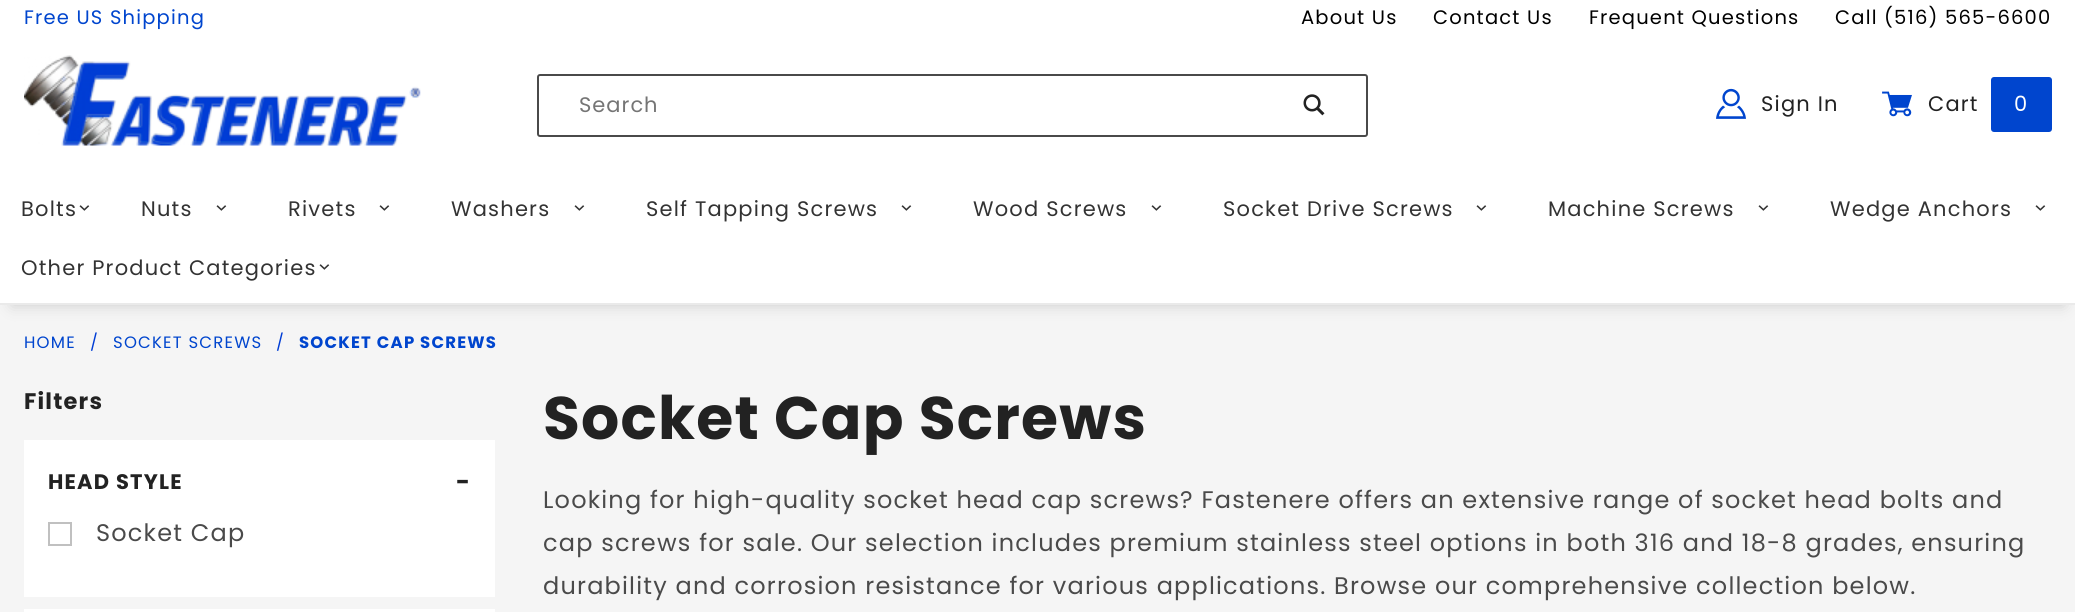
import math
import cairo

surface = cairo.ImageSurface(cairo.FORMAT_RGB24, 2075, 612)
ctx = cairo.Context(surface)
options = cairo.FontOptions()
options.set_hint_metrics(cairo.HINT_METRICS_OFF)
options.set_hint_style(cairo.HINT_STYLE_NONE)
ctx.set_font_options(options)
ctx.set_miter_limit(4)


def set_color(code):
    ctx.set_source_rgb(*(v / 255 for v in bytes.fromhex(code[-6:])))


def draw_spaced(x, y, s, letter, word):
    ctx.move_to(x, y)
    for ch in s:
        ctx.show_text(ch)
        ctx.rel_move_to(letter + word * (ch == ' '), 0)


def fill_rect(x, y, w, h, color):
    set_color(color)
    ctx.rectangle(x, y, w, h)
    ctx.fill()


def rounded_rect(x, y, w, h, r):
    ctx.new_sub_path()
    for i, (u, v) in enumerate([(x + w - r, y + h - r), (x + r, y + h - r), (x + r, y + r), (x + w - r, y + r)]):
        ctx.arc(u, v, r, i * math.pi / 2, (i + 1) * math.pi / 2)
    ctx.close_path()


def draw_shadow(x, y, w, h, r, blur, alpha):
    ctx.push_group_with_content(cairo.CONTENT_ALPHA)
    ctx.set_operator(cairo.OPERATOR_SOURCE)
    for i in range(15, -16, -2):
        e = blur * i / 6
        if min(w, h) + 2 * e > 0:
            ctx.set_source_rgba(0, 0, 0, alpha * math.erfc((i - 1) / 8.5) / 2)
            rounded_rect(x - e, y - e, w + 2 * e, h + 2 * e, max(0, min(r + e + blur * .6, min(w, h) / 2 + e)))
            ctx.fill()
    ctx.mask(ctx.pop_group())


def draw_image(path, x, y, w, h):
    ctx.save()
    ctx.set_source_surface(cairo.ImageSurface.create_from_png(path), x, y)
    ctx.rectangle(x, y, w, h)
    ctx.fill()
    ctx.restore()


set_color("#f5f5f5")
ctx.paint()
fill_rect(0, 0, 2075, 174, "#ffffff")
ctx.select_font_face("Poppins")
ctx.set_font_size(19.5)
set_color("#0045ce")
draw_spaced(24, 24, "Free US Shipping", 1.2, 0)
set_color("#000000")
draw_spaced(1301, 24, "About Us", 1.2, 0)
draw_spaced(1433, 24, "Contact Us", 1.2, 0)
draw_spaced(1589, 24, "Frequent Questions", 1.2, 0)
draw_spaced(1835, 24, "Call (516) 565-6600", 1.2, 0)
draw_image("assets/img1.png", 24, 55, 397, 91)
rounded_rect(538, 75, 829, 61, 2)
set_color("#4a4a4a")
ctx.stroke()
ctx.set_font_size(21)
set_color("#757575")
draw_spaced(579, 112, "Search", 1, 0)
draw_image("assets/img2.png", 1303, 94, 22, 22)
draw_image("assets/img3.png", 1716, 88, 30, 31)
set_color("#222222")
draw_spaced(1761, 111, "Sign In", 1.2, 0)
ctx.select_font_face("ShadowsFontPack")
ctx.set_font_size(30)
set_color("#0045ce")
draw_spaced(1882, 117, "[", 1.2, 0)
ctx.select_font_face("Poppins")
ctx.set_font_size(21)
set_color("#222222")
draw_spaced(1928, 111, "Cart", 1.2, 0)
set_color("#0045ce")
rounded_rect(1991, 77, 61, 55, 3)
ctx.fill()
set_color("#ffffff")
draw_spaced(2014, 111, "0", 1.2, 0)
set_color("#cccccc")
draw_shadow(12, 198, 2052, 107, 0, 7.5, 1)
fill_rect(0, 174, 2075, 129, "#ffffff")
fill_rect(0, 303, 2075, 2, "#eaeaea")
set_color("#333333")
draw_spaced(21, 216, "Bolts", 1.2, 0)
ctx.select_font_face("ShadowsFontPack")
ctx.set_font_size(10)
ctx.save()
ctx.translate(80, 203)
ctx.rotate(90 * math.pi / 180)
draw_spaced(0, 0, "3", 1.2, 0)
ctx.restore()
ctx.select_font_face("Poppins")
ctx.set_font_size(21)
draw_spaced(141, 216, "Nuts", 1.2, 0)
ctx.select_font_face("ShadowsFontPack")
ctx.set_font_size(10)
ctx.save()
ctx.translate(217, 203)
ctx.rotate(90 * math.pi / 180)
draw_spaced(0, 0, "3", 1.2, 0)
ctx.restore()
ctx.select_font_face("Poppins")
ctx.set_font_size(21)
draw_spaced(288, 216, "Rivets", 1.2, 0)
ctx.select_font_face("ShadowsFontPack")
ctx.set_font_size(10)
ctx.save()
ctx.translate(380, 203)
ctx.rotate(90 * math.pi / 180)
draw_spaced(0, 0, "3", 1.2, 0)
ctx.restore()
ctx.select_font_face("Poppins")
ctx.set_font_size(21)
draw_spaced(451, 216, "Washers", 1.2, 0)
ctx.select_font_face("ShadowsFontPack")
ctx.set_font_size(10)
ctx.save()
ctx.translate(575, 203)
ctx.rotate(90 * math.pi / 180)
draw_spaced(0, 0, "3", 1.2, 0)
ctx.restore()
ctx.select_font_face("Poppins")
ctx.set_font_size(21)
draw_spaced(646, 216, "Self Tapping Screws", 1.2, 0)
ctx.select_font_face("ShadowsFontPack")
ctx.set_font_size(10)
ctx.save()
ctx.translate(902, 203)
ctx.rotate(90 * math.pi / 180)
draw_spaced(0, 0, "3", 1.2, 0)
ctx.restore()
ctx.select_font_face("Poppins")
ctx.set_font_size(21)
draw_spaced(973, 216, "Wood Screws", 1.2, 0)
ctx.select_font_face("ShadowsFontPack")
ctx.set_font_size(10)
ctx.save()
ctx.translate(1152, 203)
ctx.rotate(90 * math.pi / 180)
draw_spaced(0, 0, "3", 1.2, 0)
ctx.restore()
ctx.select_font_face("Poppins")
ctx.set_font_size(21)
draw_spaced(1223, 216, "Socket Drive Screws", 1.2, 0)
ctx.select_font_face("ShadowsFontPack")
ctx.set_font_size(10)
ctx.save()
ctx.translate(1477, 203)
ctx.rotate(90 * math.pi / 180)
draw_spaced(0, 0, "3", 1.2, 0)
ctx.restore()
ctx.select_font_face("Poppins")
ctx.set_font_size(21)
draw_spaced(1548, 216, "Machine Screws", 1.2, 0)
ctx.select_font_face("ShadowsFontPack")
ctx.set_font_size(10)
ctx.save()
ctx.translate(1759, 203)
ctx.rotate(90 * math.pi / 180)
draw_spaced(0, 0, "3", 1.2, 0)
ctx.restore()
ctx.select_font_face("Poppins")
ctx.set_font_size(21)
draw_spaced(1830, 216, "Wedge Anchors", 1.2, 0)
ctx.select_font_face("ShadowsFontPack")
ctx.set_font_size(10)
ctx.save()
ctx.translate(2036, 203)
ctx.rotate(90 * math.pi / 180)
draw_spaced(0, 0, "3", 1.2, 0)
ctx.restore()
ctx.select_font_face("Poppins")
ctx.set_font_size(21)
draw_spaced(21, 275, "Other Product Categories", 1.2, 0)
ctx.select_font_face("ShadowsFontPack")
ctx.set_font_size(10)
ctx.save()
ctx.translate(320, 262)
ctx.rotate(90 * math.pi / 180)
draw_spaced(0, 0, "3", 1.2, 0)
ctx.restore()
ctx.select_font_face("Poppins")
ctx.set_font_size(16.5)
set_color("#0045ce")
draw_spaced(24, 348, "HOME", 1.2, 0)
set_color("#003dd5")
draw_spaced(90, 348, "/", 1.2, 0)
set_color("#0045ce")
draw_spaced(113, 348, "SOCKET SCREWS", 1.2, 0)
set_color("#003dd5")
draw_spaced(276, 348, "/", 1.2, 0)
ctx.select_font_face("Poppins", cairo.FONT_SLANT_NORMAL, cairo.FONT_WEIGHT_BOLD)
set_color("#0045ce")
draw_spaced(299, 348, "SOCKET CAP SCREWS", 1.2, 0)
ctx.set_font_size(22.5)
set_color("#222222")
draw_spaced(24, 409, "Filters", 1.2, 0)
fill_rect(24, 440, 471, 157, "#ffffff")
ctx.set_font_size(21)
set_color("#222222")
draw_spaced(48, 489, "HEAD STYLE", 1.2, 0)
ctx.set_font_size(24)
draw_spaced(456, 490, "-", 1.2, 0)
ctx.rectangle(49, 523, 22, 22)
set_color("#c0c0c0")
ctx.stroke()
ctx.select_font_face("Poppins")
set_color("#4a4a4a")
draw_spaced(96, 541, "Socket Cap", 1.2, 0)
fill_rect(24, 609, 471, 3, "#ffffff")
ctx.select_font_face("Poppins", cairo.FONT_SLANT_NORMAL, cairo.FONT_WEIGHT_BOLD)
ctx.set_font_size(60)
set_color("#222222")
draw_spaced(543, 439, "Socket Cap Screws", 1.2, 0)
ctx.select_font_face("Poppins")
ctx.set_font_size(24)
set_color("#4a4a4a")
draw_spaced(543, 508, "Looking for high-quality socket head cap screws? Fastenere offers an extensive range of socket head bolts and", 1.2, 0)
draw_spaced(543, 551, "cap screws for sale. Our selection includes premium stainless steel options in both 316 and 18-8 grades, ensuring", 1.2, 0)
draw_spaced(543, 594, "durability and corrosion resistance for various applications. Browse our comprehensive collection below.", 1.2, 0)
surface.write_to_png("output.png")
